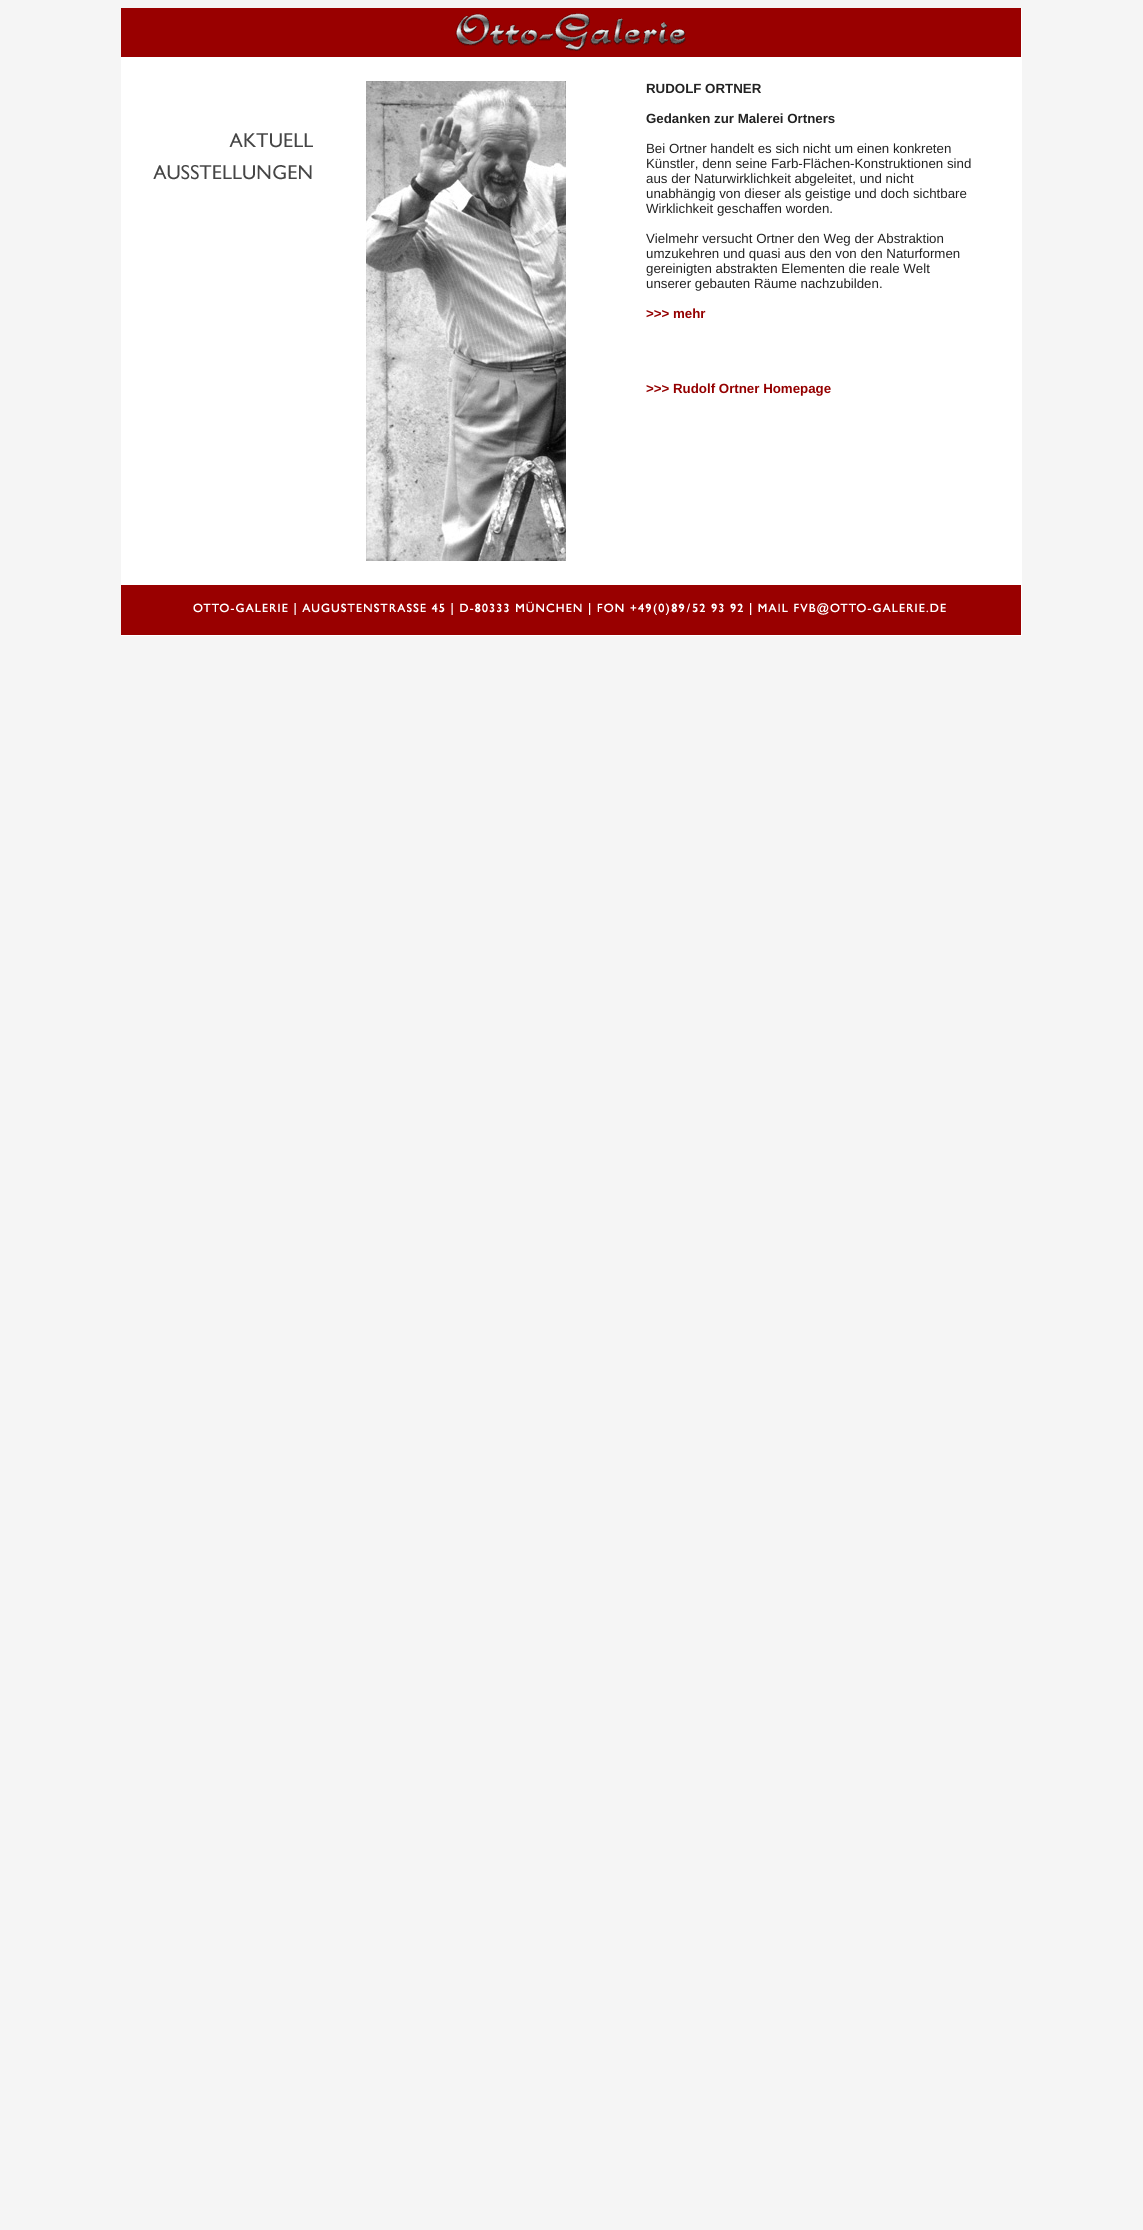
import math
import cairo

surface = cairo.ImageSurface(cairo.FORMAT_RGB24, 1143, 2230)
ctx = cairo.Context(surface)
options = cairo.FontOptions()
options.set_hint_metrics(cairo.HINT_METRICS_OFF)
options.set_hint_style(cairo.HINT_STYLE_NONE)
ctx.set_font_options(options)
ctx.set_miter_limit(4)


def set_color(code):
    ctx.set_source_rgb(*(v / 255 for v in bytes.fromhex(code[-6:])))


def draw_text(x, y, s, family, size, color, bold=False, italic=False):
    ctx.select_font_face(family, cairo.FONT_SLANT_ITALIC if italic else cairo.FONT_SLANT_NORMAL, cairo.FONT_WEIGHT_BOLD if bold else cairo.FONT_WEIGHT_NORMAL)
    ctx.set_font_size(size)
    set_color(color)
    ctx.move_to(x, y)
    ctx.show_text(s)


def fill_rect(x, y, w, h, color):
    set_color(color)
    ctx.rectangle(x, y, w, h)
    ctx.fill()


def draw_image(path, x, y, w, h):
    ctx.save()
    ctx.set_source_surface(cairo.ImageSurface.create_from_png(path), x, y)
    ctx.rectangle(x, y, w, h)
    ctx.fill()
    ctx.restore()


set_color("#f5f5f5")
ctx.paint()
fill_rect(121, 8, 901, 628, "#ffffff")
draw_image("assets/img1.png", 121, 8, 900, 49)
draw_image("assets/img2.png", 229, 133, 84, 15)
draw_image("assets/img3.png", 153, 165, 159, 15)
draw_image("assets/img4.png", 366, 81, 200, 480)
draw_text(646, 93, "RUDOLF ORTNER", "Liberation Sans", 13.3, "#222222", bold=True)
draw_text(646, 123, "Gedanken zur Malerei Ortners", "Liberation Sans", 13.3, "#222222", bold=True)
draw_text(646, 153, "Bei Ortner handelt es sich nicht um einen konkreten", "Liberation Sans", 13.3, "#222222")
draw_text(646, 168, "Künstler, denn seine Farb-Flächen-Konstruktionen sind", "Liberation Sans", 13.3, "#222222")
draw_text(646, 183, "aus der Naturwirklichkeit abgeleitet, und nicht", "Liberation Sans", 13.3, "#222222")
draw_text(646, 198, "unabhängig von dieser als geistige und doch sichtbare", "Liberation Sans", 13.3, "#222222")
draw_text(646, 213, "Wirklichkeit geschaffen worden.", "Liberation Sans", 13.3, "#222222")
draw_text(646, 243, "Vielmehr versucht Ortner den Weg der Abstraktion", "Liberation Sans", 13.3, "#222222")
draw_text(646, 258, "umzukehren und quasi aus den von den Naturformen", "Liberation Sans", 13.3, "#222222")
draw_text(646, 273, "gereinigten abstrakten Elementen die reale Welt", "Liberation Sans", 13.3, "#222222")
draw_text(646, 288, "unserer gebauten Räume nachzubilden.", "Liberation Sans", 13.3, "#222222")
draw_text(646, 318, ">>> mehr", "Liberation Sans", 13.3, "#940000", bold=True)
draw_text(646, 393, ">>> Rudolf Ortner Homepage", "Liberation Sans", 13.3, "#940000", bold=True)
draw_image("assets/img5.png", 121, 585, 900, 50)
surface.write_to_png("output.png")
